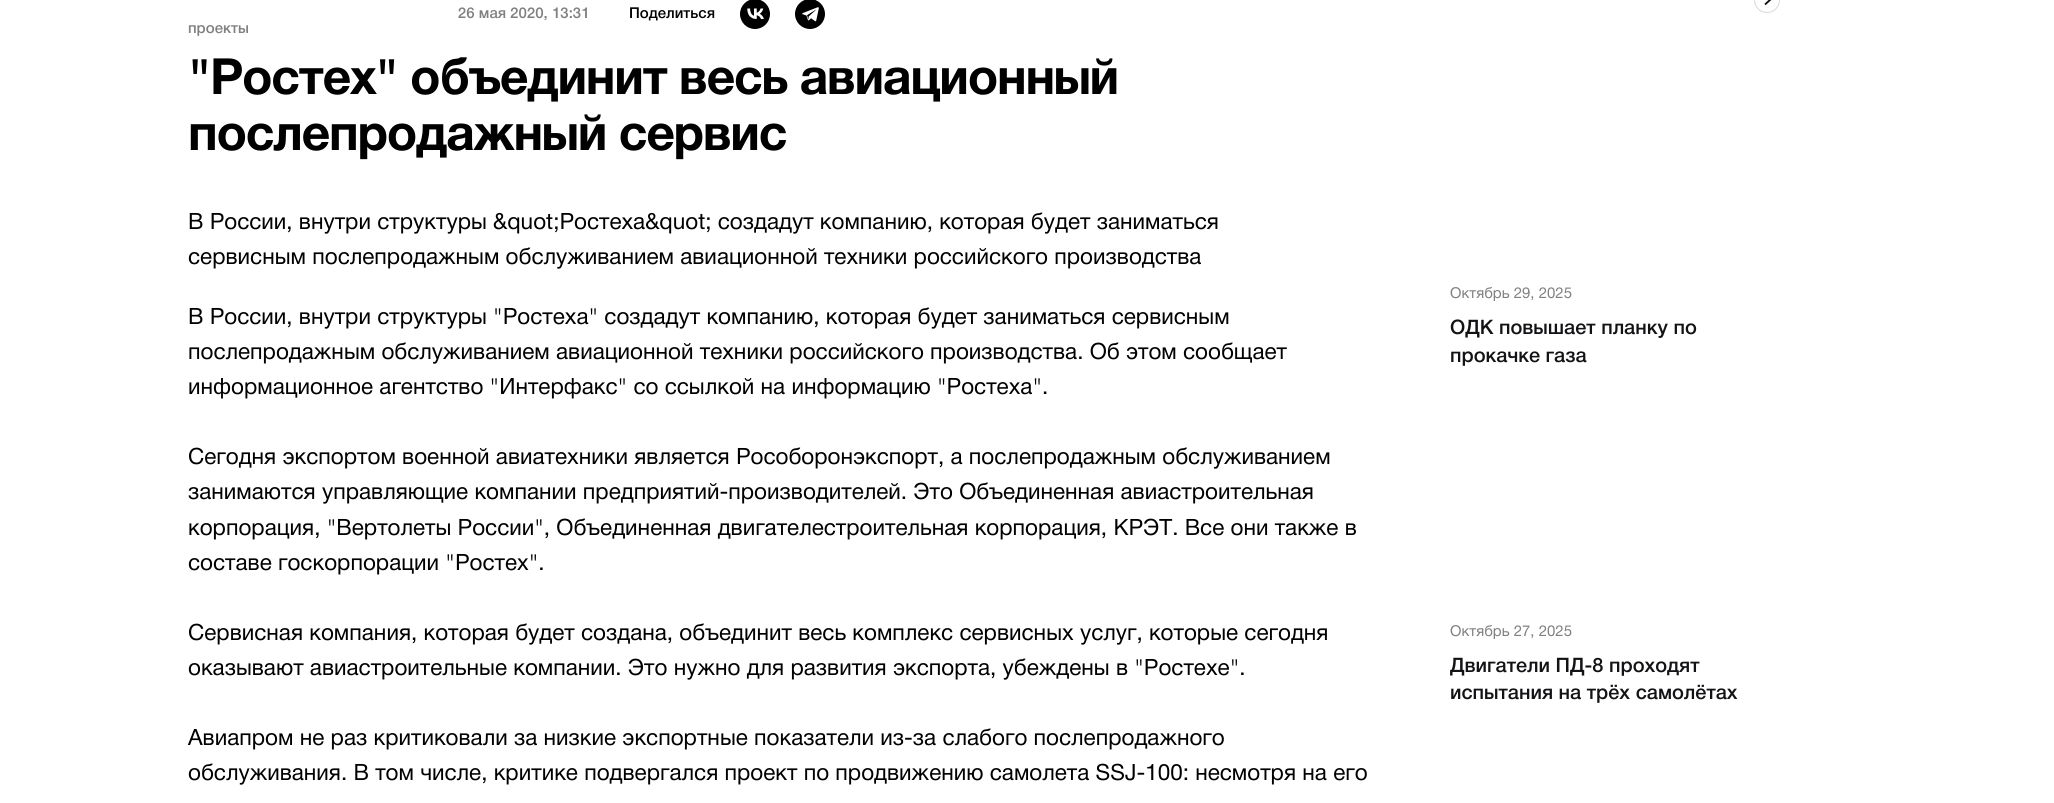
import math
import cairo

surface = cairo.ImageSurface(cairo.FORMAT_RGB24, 2054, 803)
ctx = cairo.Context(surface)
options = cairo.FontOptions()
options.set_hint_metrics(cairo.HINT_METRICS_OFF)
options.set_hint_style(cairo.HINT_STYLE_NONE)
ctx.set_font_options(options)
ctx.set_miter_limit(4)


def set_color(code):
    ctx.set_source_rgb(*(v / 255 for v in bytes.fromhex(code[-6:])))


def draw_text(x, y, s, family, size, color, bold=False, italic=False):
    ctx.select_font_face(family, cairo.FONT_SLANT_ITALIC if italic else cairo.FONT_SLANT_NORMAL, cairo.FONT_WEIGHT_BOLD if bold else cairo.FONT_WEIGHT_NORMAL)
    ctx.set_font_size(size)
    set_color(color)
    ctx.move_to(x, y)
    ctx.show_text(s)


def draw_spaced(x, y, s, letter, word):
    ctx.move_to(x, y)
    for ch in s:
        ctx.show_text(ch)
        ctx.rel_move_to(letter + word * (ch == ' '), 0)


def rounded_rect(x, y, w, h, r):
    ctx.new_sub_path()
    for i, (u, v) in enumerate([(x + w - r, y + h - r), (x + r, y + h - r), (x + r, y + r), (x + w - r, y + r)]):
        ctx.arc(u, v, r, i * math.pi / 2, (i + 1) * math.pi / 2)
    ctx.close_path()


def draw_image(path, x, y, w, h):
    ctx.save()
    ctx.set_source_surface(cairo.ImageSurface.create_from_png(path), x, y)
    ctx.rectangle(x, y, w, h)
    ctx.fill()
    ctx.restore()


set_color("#ffffff")
ctx.paint()
draw_text(458, 18, "26 мая 2020, 13:31", "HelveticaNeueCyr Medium", 15, "#808080")
draw_text(629, 18, "Поделиться", "HelveticaNeueCyr Medium", 15, "#000000")
ctx.new_path()
ctx.arc(755, 14, 15, 0, 2 * math.pi)
ctx.fill()
draw_image("assets/img1.png", 747, 8, 17, 11)
ctx.arc(810, 14, 15, 0, 2 * math.pi)
ctx.fill()
draw_image("assets/img2.png", 802, 7, 17, 15)
draw_text(188, 33, "проекты", "HelveticaNeueCyr Medium", 15, "#808080")
ctx.select_font_face("HelveticaNeueCyr", cairo.FONT_SLANT_NORMAL, cairo.FONT_WEIGHT_BOLD)
ctx.set_font_size(50)
set_color("#000000")
draw_spaced(188, 94, "\"Ростех\" объединит весь авиационный", -1.25, 0)
draw_spaced(188, 150, "послепродажный сервис", -1.25, 0)
draw_text(188, 229, "В России, внутри структуры &quot;Ростеха&quot; создадут компанию, которая будет заниматься", "HelveticaNeueCyr", 22.5, "#000000")
draw_text(188, 264, "сервисным послепродажным обслуживанием авиационной техники российского производства", "HelveticaNeueCyr", 22.5, "#000000")
draw_text(188, 324, "В России, внутри структуры \"Ростеха\" создадут компанию, которая будет заниматься сервисным", "HelveticaNeueCyr", 22.5, "#000000")
draw_text(188, 359, "послепродажным обслуживанием авиационной техники российского производства. Об этом сообщает", "HelveticaNeueCyr", 22.5, "#000000")
draw_text(188, 394, "информационное агентство \"Интерфакс\" со ссылкой на информацию \"Ростеха\".", "HelveticaNeueCyr", 22.5, "#000000")
draw_text(188, 464, "Сегодня экспортом военной авиатехники является Рособоронэкспорт, а послепродажным обслуживанием", "HelveticaNeueCyr", 22.5, "#000000")
draw_text(188, 499, "занимаются управляющие компании предприятий-производителей. Это Объединенная авиастроительная", "HelveticaNeueCyr", 22.5, "#000000")
draw_text(188, 535, "корпорация, \"Вертолеты России\", Объединенная двигателестроительная корпорация, КРЭТ. Все они также в", "HelveticaNeueCyr", 22.5, "#000000")
draw_text(188, 570, "составе госкорпорации \"Ростех\".", "HelveticaNeueCyr", 22.5, "#000000")
draw_text(188, 640, "Сервисная компания, которая будет создана, объединит весь комплекс сервисных услуг, которые сегодня", "HelveticaNeueCyr", 22.5, "#000000")
draw_text(188, 675, "оказывают авиастроительные компании. Это нужно для развития экспорта, убеждены в \"Ростехе\".", "HelveticaNeueCyr", 22.5, "#000000")
draw_text(188, 745, "Авиапром не раз критиковали за низкие экспортные показатели из-за слабого послепродажного", "HelveticaNeueCyr", 22.5, "#000000")
draw_text(188, 780, "обслуживания. В том числе, критике подвергался проект по продвижению самолета SSJ-100: несмотря на его", "HelveticaNeueCyr", 22.5, "#000000")
rounded_rect(1754.5, -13.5, 25, 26, 12.5)
set_color("#d9d9d9")
ctx.set_line_width(1)
ctx.stroke()
ctx.new_path()
ctx.move_to(1765, -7)
ctx.curve_to(1766, -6.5, 1769.5, -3, 1771, -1)
ctx.line_to(1765, 4.5)
set_color("#131215")
ctx.set_line_width(1.9)
ctx.stroke()
draw_text(1450, 298, "Октябрь 29, 2025", "HelveticaNeueCyr", 15, "#808080")
draw_text(1450, 334, "ОДК повышает планку по", "HelveticaNeueCyr Medium", 20, "#131215")
draw_text(1450, 362, "прокачке газа", "HelveticaNeueCyr Medium", 20, "#131215")
draw_text(1450, 636, "Октябрь 27, 2025", "HelveticaNeueCyr", 15, "#808080")
draw_text(1450, 672, "Двигатели ПД-8 проходят", "HelveticaNeueCyr Medium", 20, "#131215")
draw_text(1450, 699, "испытания на трёх самолётах", "HelveticaNeueCyr Medium", 20, "#131215")
surface.write_to_png("output.png")
